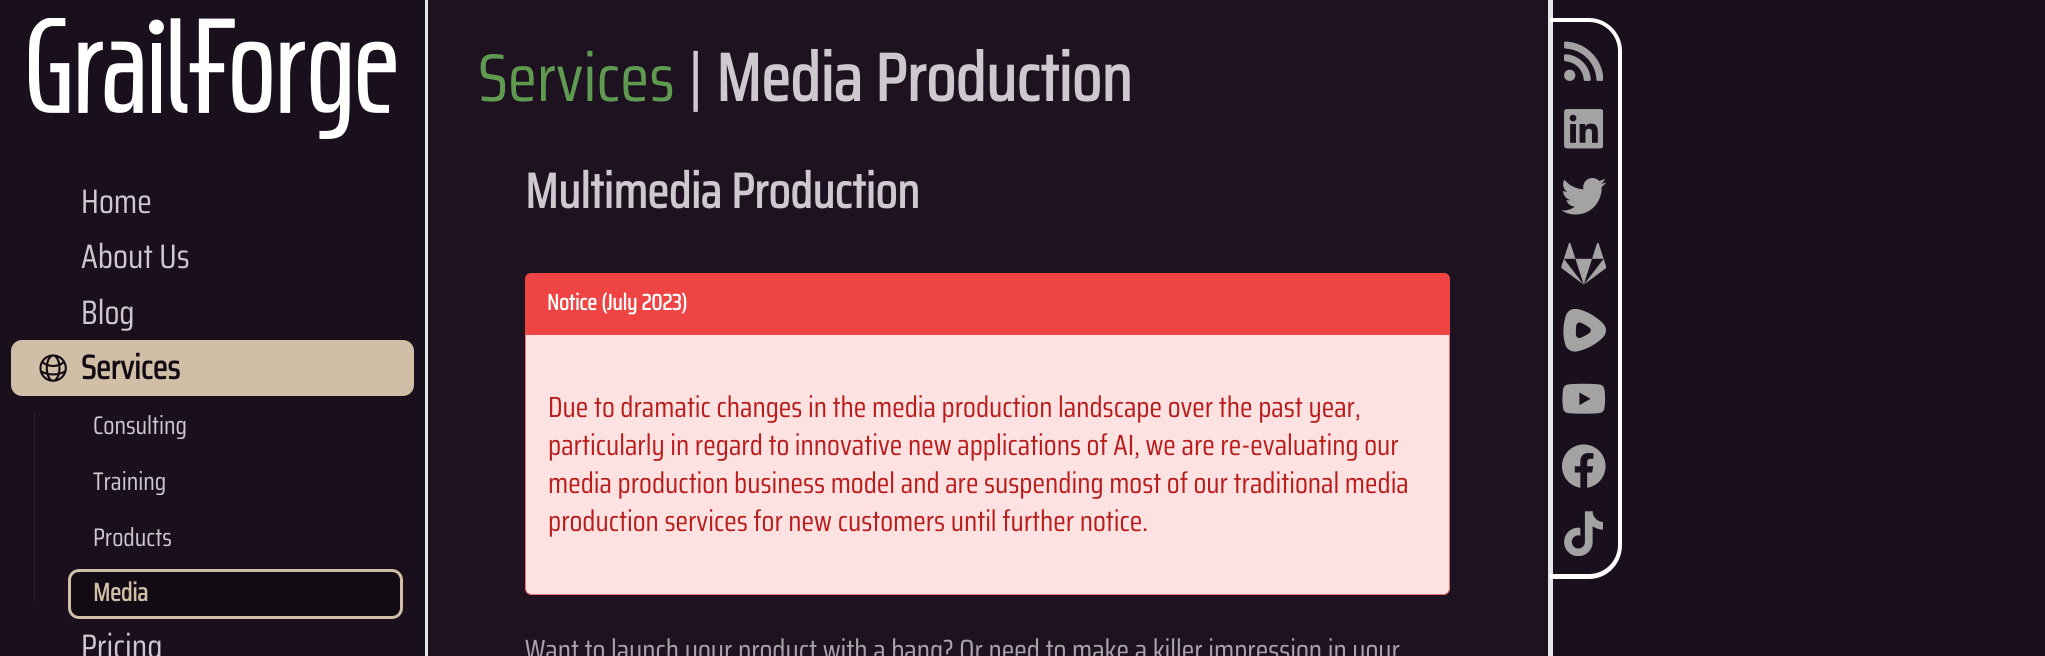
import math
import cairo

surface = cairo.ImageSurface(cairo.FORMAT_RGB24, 2045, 656)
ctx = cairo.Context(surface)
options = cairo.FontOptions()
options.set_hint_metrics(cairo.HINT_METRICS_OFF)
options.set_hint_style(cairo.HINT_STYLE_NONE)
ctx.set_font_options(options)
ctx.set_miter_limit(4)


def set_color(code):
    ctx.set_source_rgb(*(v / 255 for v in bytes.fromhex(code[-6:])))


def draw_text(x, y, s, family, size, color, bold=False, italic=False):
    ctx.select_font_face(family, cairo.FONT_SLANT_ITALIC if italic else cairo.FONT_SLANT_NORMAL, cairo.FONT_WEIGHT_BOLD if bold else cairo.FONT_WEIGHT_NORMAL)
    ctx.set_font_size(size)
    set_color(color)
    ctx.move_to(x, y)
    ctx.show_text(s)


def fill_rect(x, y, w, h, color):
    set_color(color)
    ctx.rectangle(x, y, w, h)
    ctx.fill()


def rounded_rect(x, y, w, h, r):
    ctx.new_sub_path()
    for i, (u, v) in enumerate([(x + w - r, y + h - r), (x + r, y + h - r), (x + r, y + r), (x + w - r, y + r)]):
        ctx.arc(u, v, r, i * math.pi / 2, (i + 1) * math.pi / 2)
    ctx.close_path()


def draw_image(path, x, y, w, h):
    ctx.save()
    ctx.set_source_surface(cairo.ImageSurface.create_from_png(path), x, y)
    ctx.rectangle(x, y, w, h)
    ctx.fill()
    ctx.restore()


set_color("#1a0f1d")
ctx.paint()
fill_rect(425, 0, 3, 656, "#e5e7eb")
draw_image("assets/img1.png", 29, 18, 367, 121)
draw_text(81, 213, "Home", "Saira Condensed", 34, "#cdc9ce")
draw_text(81, 268, "About Us", "Saira Condensed", 34, "#cdc9ce")
draw_text(81, 324, "Blog", "Saira Condensed", 34, "#cdc9ce")
set_color("#d1bea6")
rounded_rect(11, 340, 403, 56, 11)
ctx.fill()
draw_image("assets/img2.png", 39, 354, 28, 28)
draw_text(81, 379, "Services", "Saira Condensed", 34, "#120b14", bold=True)
fill_rect(34, 413, 1, 188, "#2d2330")
draw_text(93, 434, "Consulting", "Saira Condensed", 25.5, "#cdc9ce")
draw_text(93, 490, "Training", "Saira Condensed", 25.5, "#cdc9ce")
draw_text(93, 546, "Products", "Saira Condensed", 25.5, "#cdc9ce")
set_color("#120b14")
rounded_rect(69.5, 570.5, 332, 47, 9.5)
ctx.fill_preserve()
set_color("#d1bea6")
ctx.set_line_width(3)
ctx.stroke()
draw_text(93, 601, "Media", "Saira Condensed", 25.5, "#d1bea6", bold=True)
draw_text(81, 658, "Pricing", "Saira Condensed", 34, "#cdc9ce")
fill_rect(428, 0, 1120, 656, "#1e1221")
fill_rect(1548, 0, 5, 656, "#e5e7eb")
draw_text(478, 101, "Services", "Saira Condensed", 67.5, "#5f9a51")
draw_text(688, 101, "|", "Saira Condensed", 67.5, "#cdc9ce")
draw_text(716, 101, "Media Production", "Saira Condensed", 67.5, "#cdc9ce", bold=True)
draw_text(525, 208, "Multimedia Production", "Saira Condensed", 49.5, "#cdc9ce", bold=True)
set_color("#ef4444")
ctx.new_path()
ctx.move_to(531, 273)
ctx.line_to(1444, 273)
ctx.curve_to(1447.5, 273, 1450, 275.5, 1450, 279)
ctx.line_to(1450, 335)
ctx.line_to(525, 335)
ctx.line_to(525, 279)
ctx.curve_to(525, 275.5, 527.5, 273, 531, 273)
ctx.close_path()
ctx.fill()
draw_text(547, 310, "Notice (July 2023)", "Saira Condensed", 22.5, "#ffffff", bold=True)
set_color("#fee2e2")
ctx.new_path()
ctx.move_to(526, 335)
ctx.line_to(1449, 335)
ctx.line_to(1449, 589)
ctx.curve_to(1449, 592, 1447, 594, 1444, 594)
ctx.line_to(531, 594)
ctx.curve_to(528, 594, 526, 592, 526, 589)
ctx.close_path()
ctx.fill()
set_color("#f87171")
ctx.set_fill_rule(cairo.FILL_RULE_EVEN_ODD)
ctx.new_path()
ctx.move_to(525, 335)
ctx.line_to(1450, 335)
ctx.line_to(1450, 589)
ctx.curve_to(1450, 592, 1447, 595, 1444, 595)
ctx.line_to(531, 595)
ctx.curve_to(528, 595, 525, 592, 525, 589)
ctx.close_path()
ctx.move_to(526, 335)
ctx.line_to(1449, 335)
ctx.line_to(1449, 589)
ctx.curve_to(1449, 592, 1447, 594, 1444, 594)
ctx.line_to(531, 594)
ctx.curve_to(528, 594, 526, 592, 526, 589)
ctx.close_path()
ctx.fill()
draw_text(548, 417, "Due to dramatic changes in the media production landscape over the past year,", "Saira Condensed", 29.25, "#b91c1c")
draw_text(548, 455, "particularly in regard to innovative new applications of AI, we are re-evaluating our", "Saira Condensed", 29.25, "#b91c1c")
draw_text(548, 493, "media production business model and are suspending most of our traditional media", "Saira Condensed", 29.25, "#b91c1c")
draw_text(548, 531, "production services for new customers until further notice.", "Saira Condensed", 29.25, "#b91c1c")
draw_text(525, 660, "Want to launch your product with a bang? Or need to make a killer impression in your", "Saira Condensed", 29.25, "#aaa4ab")
set_color("#ffffff")
ctx.new_path()
ctx.move_to(1550, 18)
ctx.line_to(1589, 18)
ctx.curve_to(1607, 18, 1622, 33, 1622, 51)
ctx.line_to(1622, 545)
ctx.curve_to(1622, 564, 1607, 579, 1589, 579)
ctx.line_to(1550, 579)
ctx.close_path()
ctx.move_to(1550, 22)
ctx.line_to(1589, 22)
ctx.curve_to(1605, 22, 1618, 35, 1618, 51)
ctx.line_to(1618, 545)
ctx.curve_to(1618, 561, 1605, 574, 1589, 574)
ctx.line_to(1550, 574)
ctx.close_path()
ctx.fill()
draw_image("assets/img3.png", 1564, 41, 39, 40)
draw_image("assets/img4.png", 1564, 109, 39, 40)
draw_image("assets/img5.png", 1561, 178, 45, 37)
draw_image("assets/img6.png", 1561, 242, 45, 43)
draw_image("assets/img7.png", 1563, 309, 43, 43)
draw_image("assets/img8.png", 1562, 383, 44, 31)
draw_image("assets/img9.png", 1561, 444, 45, 44)
draw_image("assets/img10.png", 1564, 511, 39, 45)
surface.write_to_png("output.png")
